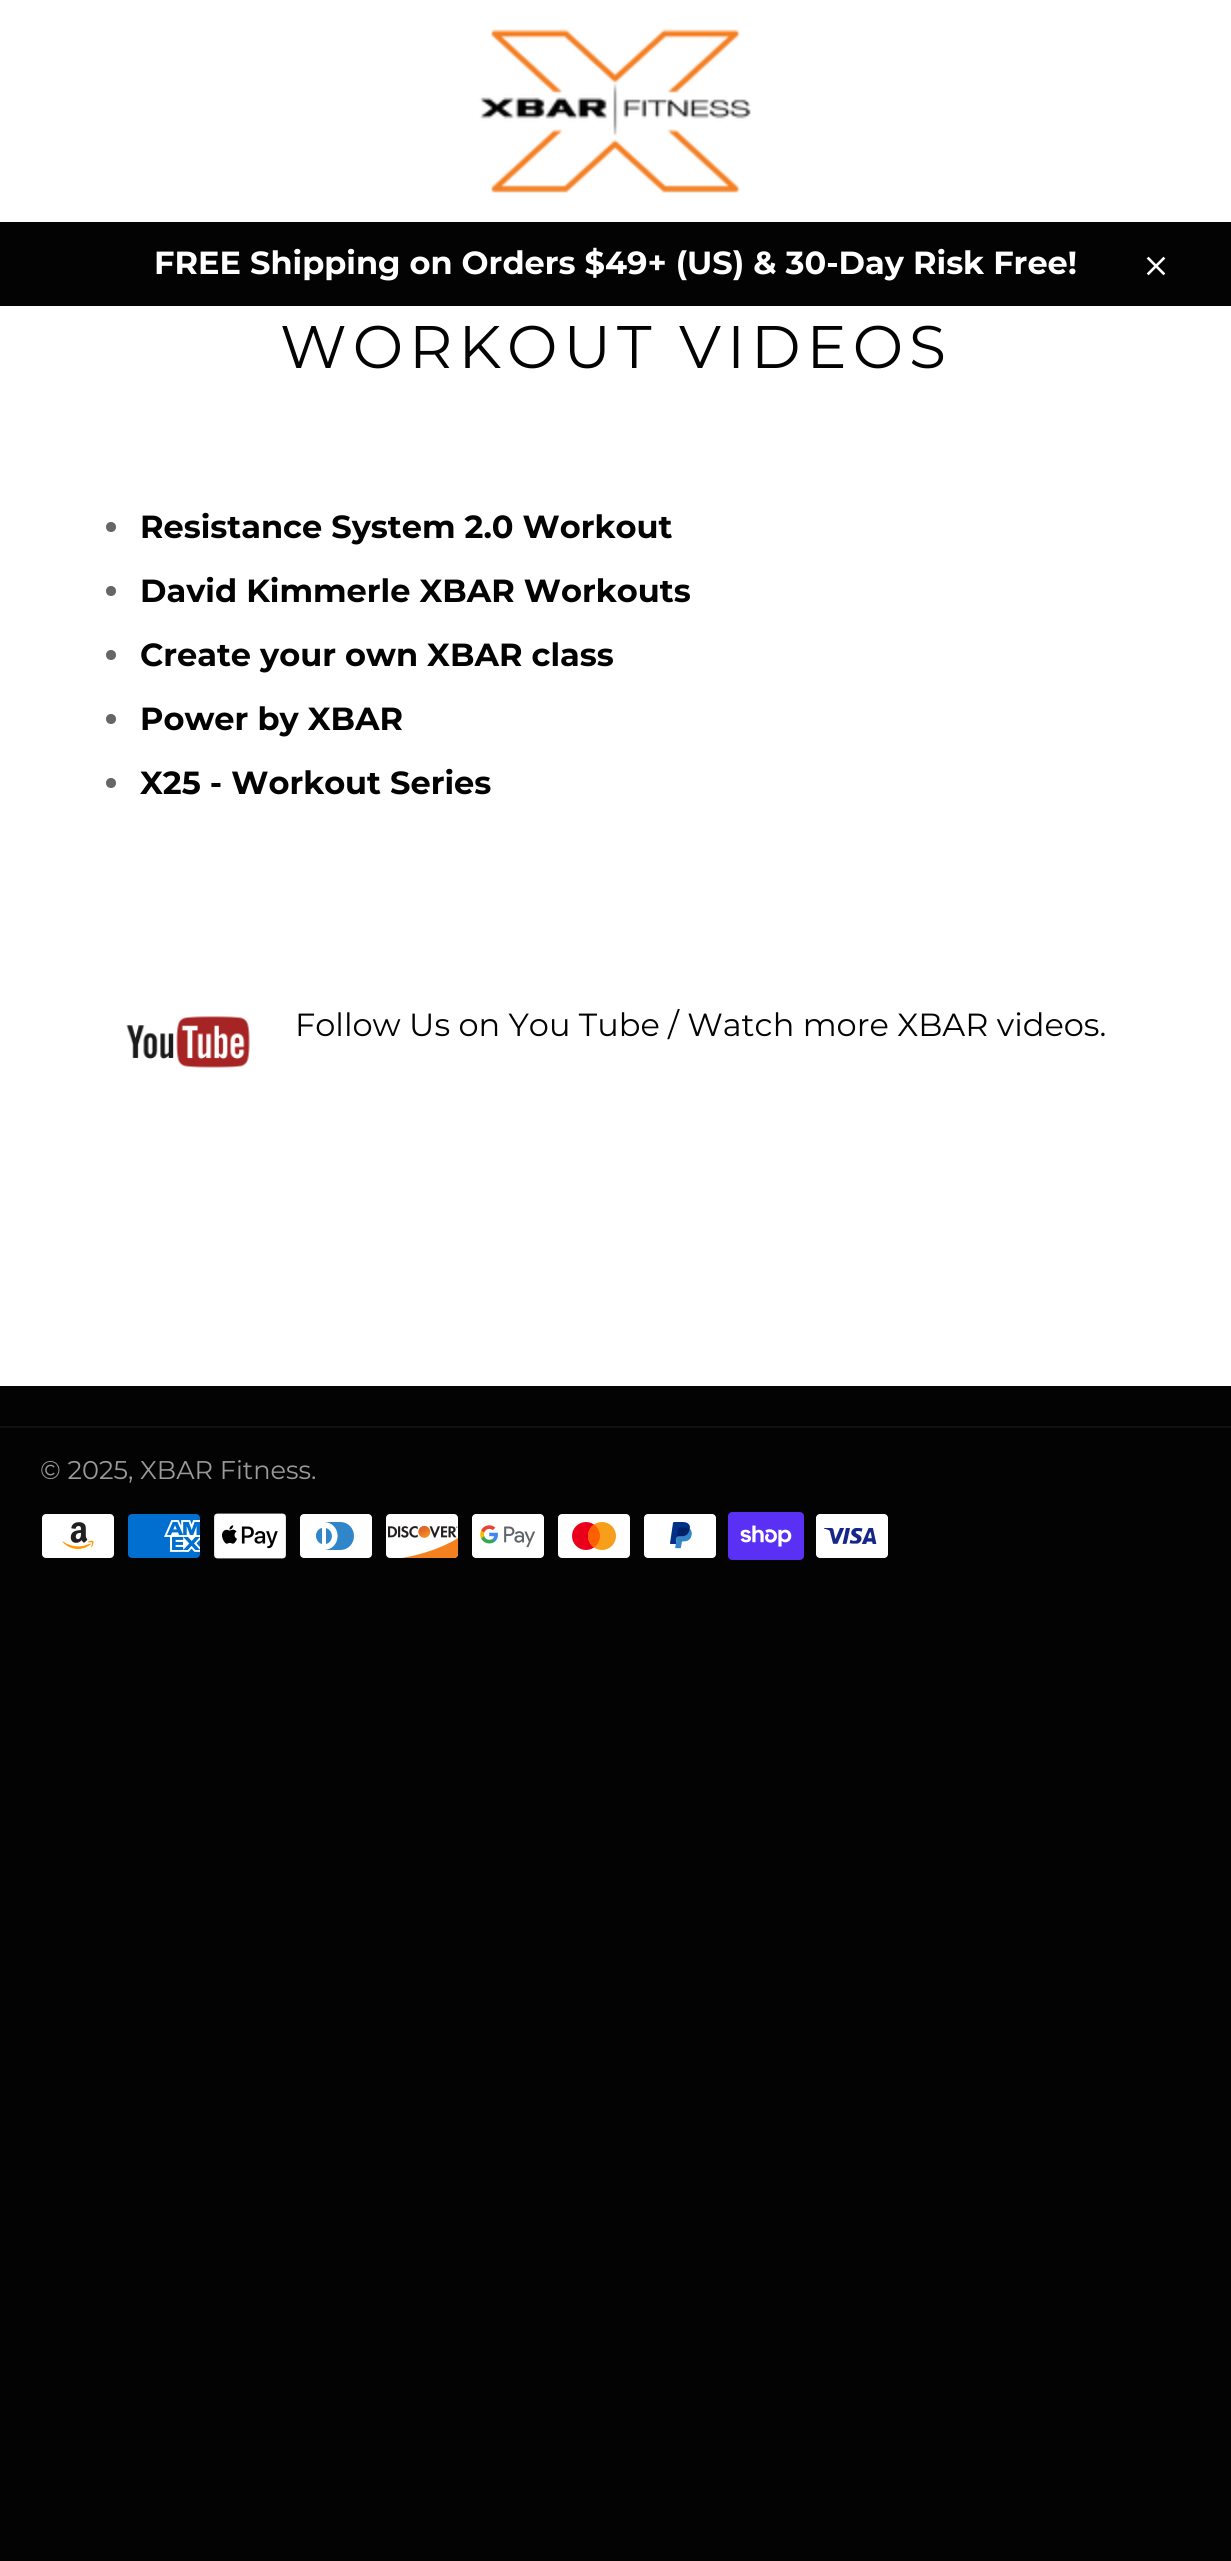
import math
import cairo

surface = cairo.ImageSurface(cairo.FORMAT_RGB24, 1231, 2561)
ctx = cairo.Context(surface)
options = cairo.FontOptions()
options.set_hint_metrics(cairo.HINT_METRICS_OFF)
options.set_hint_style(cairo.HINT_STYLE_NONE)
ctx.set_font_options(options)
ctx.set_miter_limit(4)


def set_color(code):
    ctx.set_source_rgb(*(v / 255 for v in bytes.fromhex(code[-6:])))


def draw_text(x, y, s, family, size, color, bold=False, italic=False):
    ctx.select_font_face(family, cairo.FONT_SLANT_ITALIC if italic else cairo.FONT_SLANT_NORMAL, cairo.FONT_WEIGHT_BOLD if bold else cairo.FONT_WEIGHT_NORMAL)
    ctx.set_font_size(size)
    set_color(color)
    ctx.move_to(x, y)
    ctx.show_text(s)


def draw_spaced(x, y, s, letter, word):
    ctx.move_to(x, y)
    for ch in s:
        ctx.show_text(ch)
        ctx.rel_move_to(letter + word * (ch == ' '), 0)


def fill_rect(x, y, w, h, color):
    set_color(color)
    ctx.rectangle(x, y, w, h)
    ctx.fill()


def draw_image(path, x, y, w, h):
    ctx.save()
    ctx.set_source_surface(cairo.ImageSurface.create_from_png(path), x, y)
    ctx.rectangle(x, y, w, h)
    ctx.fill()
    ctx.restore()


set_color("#030303")
ctx.paint()
fill_rect(0, 0, 1231, 1386, "#ffffff")
draw_image("assets/img1.png", 479, 29, 272, 164)
fill_rect(0, 222, 1231, 84, "#030303")
draw_text(154, 274, "FREE Shipping on Orders $49+ (US) & 30-Day Risk Free!", "Montserrat", 32, "#ffffff", bold=True)
draw_image("assets/img2.png", 1146, 256, 20, 20)
ctx.select_font_face("Montserrat")
ctx.set_font_size(60)
set_color("#030303")
draw_spaced(280, 368, "WORKOUT VIDEOS", 6, 0)
set_color("#666666")
ctx.new_path()
ctx.arc(111, 527, 5, 0, 2 * math.pi)
ctx.fill()
draw_text(140, 538, "Resistance System 2.0 Workout", "Montserrat", 32, "#030303", bold=True)
set_color("#666666")
ctx.new_path()
ctx.arc(111, 591, 5, 0, 2 * math.pi)
ctx.fill()
draw_text(140, 602, "David Kimmerle XBAR Workouts", "Montserrat", 32, "#030303", bold=True)
set_color("#666666")
ctx.new_path()
ctx.arc(111, 655, 5, 0, 2 * math.pi)
ctx.fill()
draw_text(140, 666, "Create your own XBAR class", "Montserrat", 32, "#030303", bold=True)
set_color("#666666")
ctx.new_path()
ctx.arc(111, 719, 5, 0, 2 * math.pi)
ctx.fill()
draw_text(140, 730, "Power by XBAR", "Montserrat", 32, "#030303", bold=True)
set_color("#666666")
ctx.new_path()
ctx.arc(111, 783, 5, 0, 2 * math.pi)
ctx.fill()
draw_text(140, 794, "X25 - Workout Series", "Montserrat", 32, "#030303", bold=True)
draw_image("assets/img3.png", 126, 1016, 124, 52)
draw_text(295, 1036, "Follow Us on You Tube / Watch more XBAR videos.", "Montserrat", 32, "#030303")
fill_rect(0, 1426, 1231, 2, "#101010")
draw_text(40, 1479, "© 2025, XBAR Fitness.", "Montserrat", 25.6, "#9a9a9a")
draw_image("assets/img4.png", 42, 1514, 72, 44)
draw_image("assets/img5.png", 128, 1514, 72, 44)
draw_image("assets/img6.png", 214, 1513, 72, 46)
draw_image("assets/img7.png", 300, 1514, 72, 44)
draw_image("assets/img8.png", 386, 1514, 73, 44)
draw_image("assets/img9.png", 472, 1514, 72, 44)
draw_image("assets/img10.png", 558, 1514, 72, 44)
draw_image("assets/img11.png", 644, 1514, 72, 44)
draw_image("assets/img12.png", 728, 1512, 76, 48)
draw_image("assets/img13.png", 816, 1514, 72, 44)
surface.write_to_png("output.png")
